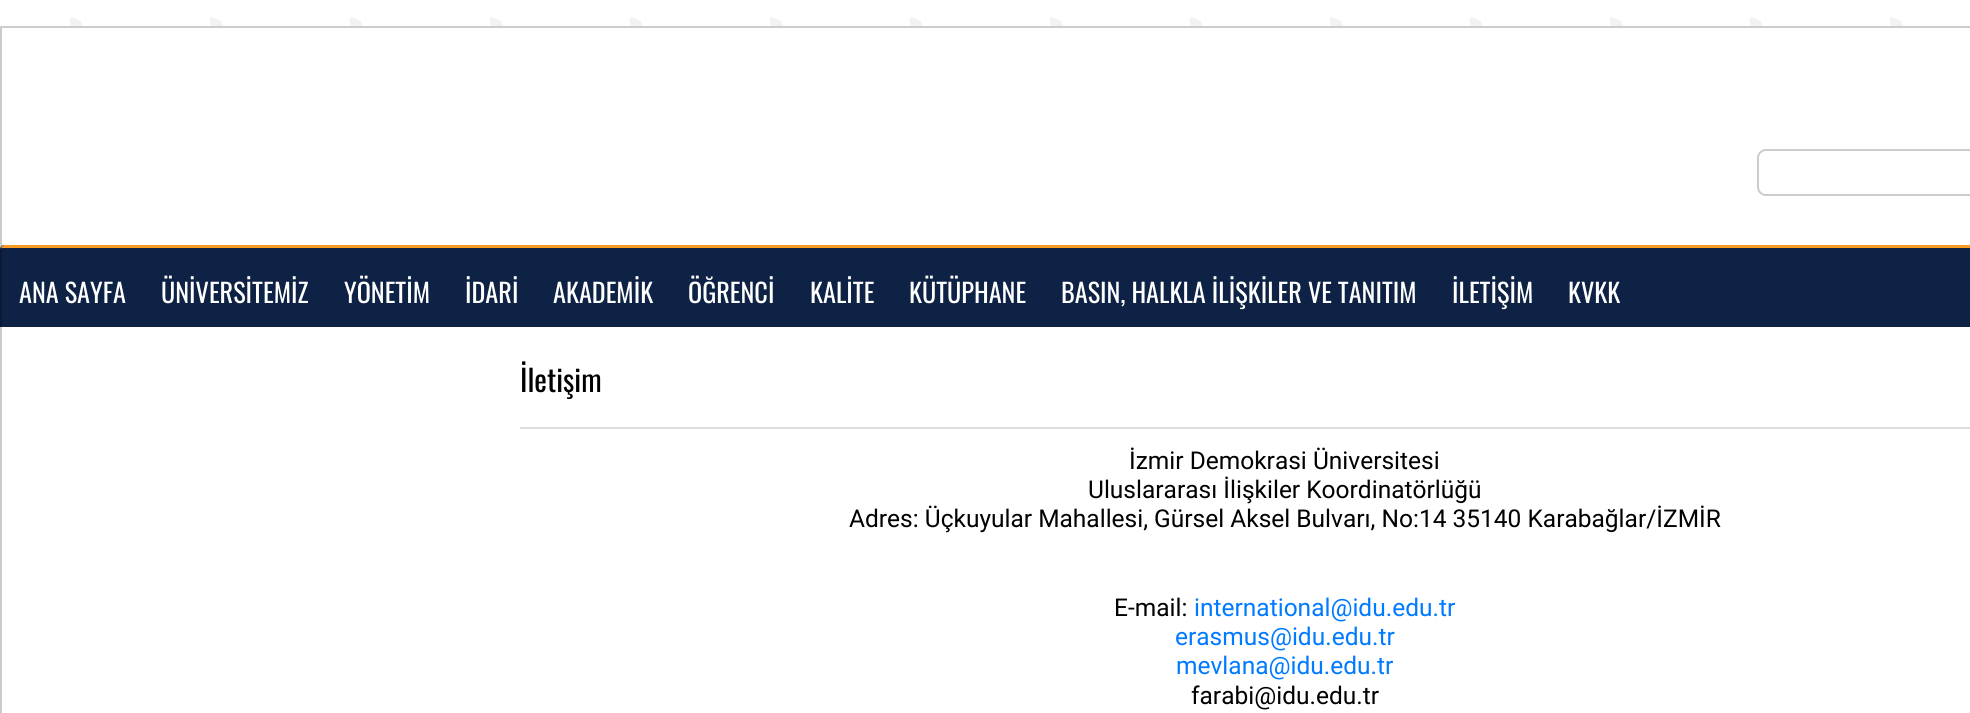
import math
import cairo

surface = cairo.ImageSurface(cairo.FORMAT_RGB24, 1970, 713)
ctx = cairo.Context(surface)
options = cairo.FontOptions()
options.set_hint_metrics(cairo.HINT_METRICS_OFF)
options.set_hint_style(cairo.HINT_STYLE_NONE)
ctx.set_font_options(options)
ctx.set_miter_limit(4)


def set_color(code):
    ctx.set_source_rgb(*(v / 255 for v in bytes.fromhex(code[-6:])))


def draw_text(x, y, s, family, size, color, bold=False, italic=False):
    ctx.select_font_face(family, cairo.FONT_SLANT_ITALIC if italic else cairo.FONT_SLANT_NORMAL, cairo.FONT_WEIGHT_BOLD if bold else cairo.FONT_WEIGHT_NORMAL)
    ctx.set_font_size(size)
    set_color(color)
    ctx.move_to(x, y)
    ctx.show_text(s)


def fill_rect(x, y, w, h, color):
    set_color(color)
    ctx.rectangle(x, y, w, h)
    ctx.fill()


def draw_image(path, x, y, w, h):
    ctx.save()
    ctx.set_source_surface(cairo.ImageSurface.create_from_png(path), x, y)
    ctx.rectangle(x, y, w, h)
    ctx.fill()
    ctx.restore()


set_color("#ffffff")
ctx.paint()
draw_image("assets/img1.png", 70, 17, 1833, 9)
set_color("#cccccc")
ctx.new_path()
ctx.move_to(0, 26)
ctx.line_to(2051, 26)
ctx.line_to(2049, 28)
ctx.line_to(2, 28)
ctx.close_path()
ctx.fill()
ctx.set_source_rgba(0, 0, 0, 0.2)
ctx.new_path()
ctx.move_to(0, 247)
ctx.line_to(0, 26)
ctx.line_to(2, 28)
ctx.line_to(2, 247)
ctx.close_path()
ctx.fill()
ctx.new_path()
ctx.move_to(1766, 150)
ctx.line_to(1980, 150)
ctx.line_to(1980, 195)
ctx.line_to(1766, 195)
ctx.curve_to(1761.5, 195, 1758, 191.5, 1758, 187)
ctx.line_to(1758, 158)
ctx.curve_to(1758, 153.5, 1761.5, 150, 1766, 150)
ctx.close_path()
set_color("#cccccc")
ctx.stroke()
set_color("#0e2245")
ctx.new_path()
ctx.move_to(4, 245)
ctx.line_to(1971, 245)
ctx.line_to(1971, 327)
ctx.line_to(0, 327)
ctx.line_to(0, 249)
ctx.curve_to(0, 247, 2, 245, 4, 245)
ctx.close_path()
ctx.fill()
set_color("#fa9b23")
ctx.new_path()
ctx.move_to(4, 245)
ctx.line_to(1, 247)
ctx.line_to(2, 249)
ctx.line_to(2, 248)
ctx.line_to(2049, 248)
ctx.line_to(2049, 249)
ctx.line_to(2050, 247)
ctx.line_to(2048, 245)
ctx.close_path()
ctx.fill()
ctx.set_source_rgba(0, 0, 0, 0.2)
ctx.new_path()
ctx.move_to(0, 248)
ctx.line_to(0, 327)
ctx.line_to(2, 327)
ctx.line_to(2, 249)
ctx.line_to(1, 247)
ctx.close_path()
ctx.fill()
draw_text(19, 303, "ANA SAYFA", "Oswald", 26.25, "#ffffff")
draw_text(161, 303, "ÜNİVERSİTEMİZ", "Oswald", 26.25, "#ffffff")
draw_text(344, 303, "YÖNETİM", "Oswald", 26.25, "#ffffff")
draw_text(465, 303, "İDARİ", "Oswald", 26.25, "#ffffff")
draw_text(553, 303, "AKADEMİK", "Oswald", 26.25, "#ffffff")
draw_text(688, 303, "ÖĞRENCİ", "Oswald", 26.25, "#ffffff")
draw_text(810, 303, "KALİTE", "Oswald", 26.25, "#ffffff")
draw_text(909, 303, "KÜTÜPHANE", "Oswald", 26.25, "#ffffff")
draw_text(1061, 303, "BASIN, HALKLA İLİŞKİLER VE TANITIM", "Oswald", 26.25, "#ffffff")
draw_text(1452, 303, "İLETİŞİM", "Oswald", 26.25, "#ffffff")
draw_text(1568, 303, "KVKK", "Oswald", 26.25, "#ffffff")
fill_rect(0, 327, 2, 386, "#cccccc")
fill_rect(520, 427, 1450, 2, "#dddddd")
draw_text(520, 392, "İletişim", "Oswald", 30, "#000000")
draw_text(1129, 469, "İzmir Demokrasi Üniversitesi", "Roboto", 24.5, "#000000")
draw_text(1088, 498, "Uluslararası İlişkiler Koordinatörlüğü", "Roboto", 24.5, "#000000")
draw_text(849, 527, "Adres: Üçkuyular Mahallesi, Gürsel Aksel Bulvarı, No:14 35140 Karabağlar/İZMİR", "Roboto", 24.5, "#000000")
draw_text(1114, 616, "E-mail:", "Roboto", 24.5, "#000000")
draw_text(1194, 616, "international@idu.edu.tr", "Roboto", 24.5, "#007aff")
draw_text(1175, 645, "erasmus@idu.edu.tr", "Roboto", 24.5, "#007aff")
draw_text(1176, 674, "mevlana@idu.edu.tr", "Roboto", 24.5, "#007aff")
draw_text(1191, 704, "farabi@idu.edu.tr", "Roboto", 24.5, "#000000")
surface.write_to_png("output.png")
